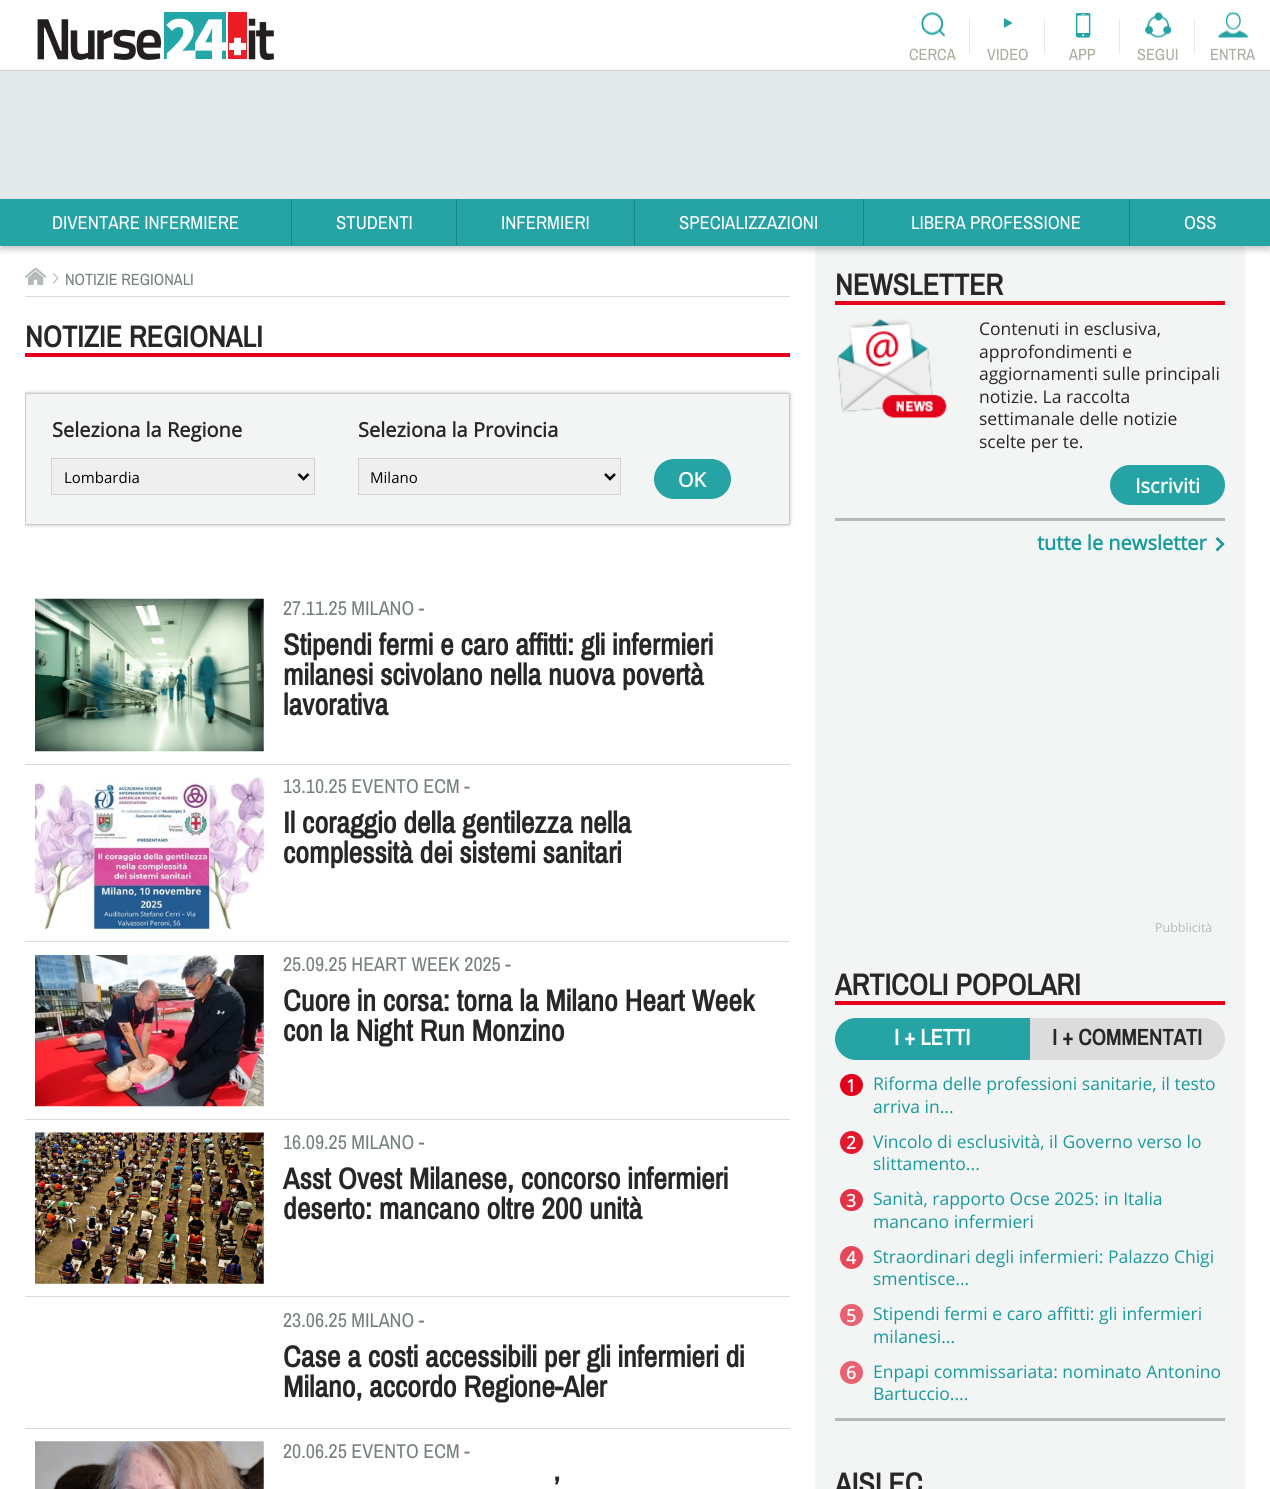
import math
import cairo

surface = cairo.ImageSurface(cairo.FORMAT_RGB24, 1270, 1489)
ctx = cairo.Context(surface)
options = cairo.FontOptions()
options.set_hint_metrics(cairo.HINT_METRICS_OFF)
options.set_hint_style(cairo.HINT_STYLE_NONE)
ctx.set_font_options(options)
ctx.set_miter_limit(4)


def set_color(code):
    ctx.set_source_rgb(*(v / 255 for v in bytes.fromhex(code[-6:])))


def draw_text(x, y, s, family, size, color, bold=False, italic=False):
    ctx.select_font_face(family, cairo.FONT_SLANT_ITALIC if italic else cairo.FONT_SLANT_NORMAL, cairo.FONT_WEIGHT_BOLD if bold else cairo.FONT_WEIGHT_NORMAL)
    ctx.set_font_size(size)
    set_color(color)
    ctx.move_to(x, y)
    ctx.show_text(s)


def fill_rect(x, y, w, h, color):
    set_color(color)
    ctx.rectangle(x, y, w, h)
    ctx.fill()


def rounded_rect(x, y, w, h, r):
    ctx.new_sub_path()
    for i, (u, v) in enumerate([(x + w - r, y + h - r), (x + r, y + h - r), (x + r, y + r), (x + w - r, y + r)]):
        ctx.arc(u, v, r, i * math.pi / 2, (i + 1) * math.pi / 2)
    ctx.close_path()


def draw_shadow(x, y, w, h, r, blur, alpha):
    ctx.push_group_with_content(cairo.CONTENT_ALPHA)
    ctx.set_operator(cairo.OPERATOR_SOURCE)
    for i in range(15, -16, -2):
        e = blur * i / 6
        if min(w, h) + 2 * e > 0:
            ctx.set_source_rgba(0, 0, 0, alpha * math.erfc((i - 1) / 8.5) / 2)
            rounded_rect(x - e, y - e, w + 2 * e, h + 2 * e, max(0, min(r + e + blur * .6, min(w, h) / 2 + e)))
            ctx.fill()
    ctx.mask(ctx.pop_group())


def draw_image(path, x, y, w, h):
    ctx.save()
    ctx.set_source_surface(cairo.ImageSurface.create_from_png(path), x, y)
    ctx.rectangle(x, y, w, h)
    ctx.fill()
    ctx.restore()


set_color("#e4e9e9")
ctx.paint()
fill_rect(0, 0, 1270, 70, "#ffffff")
fill_rect(0, 70, 1270, 1, "#cccccc")
draw_image("assets/img1.png", 37, 12, 237, 48)
draw_image("assets/img2.png", 921, 12, 24, 25)
draw_text(909, 60, "CERCA", "Archivo Narrow", 16.25, "#adaa9f")
fill_rect(969, 19, 1, 35, "#e4e9e9")
set_color("#26a3a5")
ctx.new_path()
ctx.move_to(1004, 18)
ctx.line_to(1012.5, 23)
ctx.line_to(1004, 28)
ctx.close_path()
ctx.fill()
draw_text(987, 60, "VIDEO", "Archivo Narrow", 16.25, "#adaa9f")
fill_rect(1044, 19, 1, 35, "#e4e9e9")
draw_image("assets/img3.png", 1075, 13, 16, 25)
draw_text(1069, 60, "APP", "Archivo Narrow", 16.25, "#adaa9f")
fill_rect(1119, 19, 1, 35, "#e4e9e9")
draw_image("assets/img4.png", 1145, 12, 27, 26)
draw_text(1137, 60, "SEGUI", "Archivo Narrow", 16.25, "#adaa9f")
fill_rect(1194, 19, 1, 35, "#e4e9e9")
draw_image("assets/img5.png", 1218, 12, 30, 26)
draw_text(1210, 60, "ENTRA", "Archivo Narrow", 16.25, "#adaa9f")
fill_rect(0, 246, 1270, 1243, "#ffffff")
fill_rect(815, 246, 430, 1243, "#f3f4f4")
set_color("#000000")
draw_shadow(0, 203, 1270, 47, 0, 3, 0.2)
fill_rect(0, 199, 1270, 47, "#26a3a5")
fill_rect(291, 199, 1, 47, "#168688")
draw_text(52, 229, "DIVENTARE INFERMIERE", "Archivo Narrow", 18.75, "#ffffff")
fill_rect(456, 199, 1, 47, "#168688")
draw_text(336, 229, "STUDENTI", "Archivo Narrow", 18.75, "#ffffff")
fill_rect(634, 199, 1, 47, "#168688")
draw_text(501, 229, "INFERMIERI", "Archivo Narrow", 18.75, "#ffffff")
fill_rect(863, 199, 1, 47, "#168688")
draw_text(679, 229, "SPECIALIZZAZIONI", "Archivo Narrow", 18.75, "#ffffff")
fill_rect(1129, 199, 1, 47, "#168688")
draw_text(911, 229, "LIBERA PROFESSIONE", "Archivo Narrow", 18.75, "#ffffff")
draw_text(1184, 229, "OSS", "Archivo Narrow", 18.75, "#ffffff")
fill_rect(25, 296, 765, 1, "#dcdcdc")
draw_image("assets/img6.png", 25, 268, 21, 17)
draw_image("assets/img7.png", 53, 273, 6, 11)
draw_text(65, 285, "NOTIZIE REGIONALI", "Archivo Narrow", 16.25, "#767f7f")
fill_rect(25, 353, 765, 4, "#e2001a")
draw_text(25, 347, "NOTIZIE REGIONALI", "Archivo Narrow", 30, "#272727", bold=True)
ctx.save()
ctx.rectangle(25, 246, 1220, 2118)
ctx.clip()
set_color("#000000")
draw_shadow(26, 394, 763, 130, 0, 2, 0.5)
ctx.restore()
fill_rect(26, 394, 763, 130, "#f3f4f4")
draw_text(52, 437, "Seleziona la Regione", "Open Sans", 20, "#272727", bold=True)
set_color("#efefef")
ctx.rectangle(51.5, 458.5, 263, 36)
ctx.fill_preserve()
set_color("#d2d2d2")
ctx.set_line_width(1)
ctx.stroke()
ctx.new_path()
ctx.move_to(298.5, 474)
ctx.line_to(303.5, 479)
ctx.line_to(308.5, 474)
set_color("#000000")
ctx.set_line_width(2.5)
ctx.stroke()
draw_text(64, 483, "Lombardia", "Open Sans", 15, "#000000")
draw_text(358, 437, "Seleziona la Provincia", "Open Sans", 20, "#272727", bold=True)
set_color("#efefef")
ctx.rectangle(358.5, 458.5, 262, 36)
ctx.fill_preserve()
set_color("#d2d2d2")
ctx.set_line_width(1)
ctx.stroke()
ctx.new_path()
ctx.move_to(605, 474)
ctx.line_to(610, 479)
ctx.line_to(615, 474)
set_color("#000000")
ctx.set_line_width(2.5)
ctx.stroke()
draw_text(370, 483, "Milano", "Open Sans", 15, "#000000")
set_color("#26a3a5")
rounded_rect(654, 459, 77, 40, 20)
ctx.fill()
draw_text(678, 487, "OK", "Open Sans", 20, "#ffffff", bold=True)
fill_rect(25, 764, 765, 1, "#dcdcdc")
draw_image("assets/img8.png", 35, 598, 229, 154)
draw_text(283, 615, "27.11.25 MILANO -", "Archivo Narrow", 20, "#767f7f")
draw_text(283, 655, "Stipendi fermi e caro affitti: gli infermieri", "Archivo Narrow", 30, "#272727", bold=True)
draw_text(283, 685, "milanesi scivolano nella nuova povertà", "Archivo Narrow", 30, "#272727", bold=True)
draw_text(283, 715, "lavorativa", "Archivo Narrow", 30, "#272727", bold=True)
fill_rect(25, 941, 765, 1, "#dcdcdc")
draw_image("assets/img9.png", 35, 777, 229, 152)
draw_text(283, 793, "13.10.25 EVENTO ECM -", "Archivo Narrow", 20, "#767f7f")
draw_text(283, 833, "Il coraggio della gentilezza nella", "Archivo Narrow", 30, "#272727", bold=True)
draw_text(283, 863, "complessità dei sistemi sanitari", "Archivo Narrow", 30, "#272727", bold=True)
fill_rect(25, 1119, 765, 1, "#dcdcdc")
draw_image("assets/img10.png", 35, 955, 229, 152)
draw_text(283, 971, "25.09.25 HEART WEEK 2025 -", "Archivo Narrow", 20, "#767f7f")
draw_text(283, 1011, "Cuore in corsa: torna la Milano Heart Week", "Archivo Narrow", 30, "#272727", bold=True)
draw_text(283, 1041, "con la Night Run Monzino", "Archivo Narrow", 30, "#272727", bold=True)
fill_rect(25, 1296, 765, 1, "#dcdcdc")
draw_image("assets/img11.png", 35, 1132, 229, 152)
draw_text(283, 1149, "16.09.25 MILANO -", "Archivo Narrow", 20, "#767f7f")
draw_text(283, 1189, "Asst Ovest Milanese, concorso infermieri", "Archivo Narrow", 30, "#272727", bold=True)
draw_text(283, 1219, "deserto: mancano oltre 200 unità", "Archivo Narrow", 30, "#272727", bold=True)
fill_rect(25, 1428, 765, 1, "#dcdcdc")
draw_text(283, 1327, "23.06.25 MILANO -", "Archivo Narrow", 20, "#767f7f")
draw_text(283, 1367, "Case a costi accessibili per gli infermieri di", "Archivo Narrow", 30, "#272727", bold=True)
draw_text(283, 1397, "Milano, accordo Regione-Aler", "Archivo Narrow", 30, "#272727", bold=True)
draw_image("assets/img12.png", 35, 1441, 229, 48)
draw_text(283, 1458, "20.06.25 EVENTO ECM -", "Archivo Narrow", 20, "#767f7f")
draw_text(554, 1498, "’", "Archivo Narrow", 30, "#272727", bold=True)
fill_rect(835, 301, 390, 4, "#e2001a")
draw_text(835, 295, "NEWSLETTER", "Archivo Narrow", 30, "#272727", bold=True)
draw_image("assets/img13.png", 837, 318, 110, 100)
draw_text(979, 335, "Contenuti in esclusiva,", "Open Sans", 17.5, "#272727")
draw_text(979, 358, "approfondimenti e", "Open Sans", 17.5, "#272727")
draw_text(979, 380, "aggiornamenti sulle principali", "Open Sans", 17.5, "#272727")
draw_text(979, 403, "notizie. La raccolta", "Open Sans", 17.5, "#272727")
draw_text(979, 425, "settimanale delle notizie", "Open Sans", 17.5, "#272727")
draw_text(979, 448, "scelte per te.", "Open Sans", 17.5, "#272727")
set_color("#26a3a5")
rounded_rect(1110, 465, 115, 40, 20)
ctx.fill()
draw_text(1135, 493, "Iscriviti", "Open Sans", 20, "#ffffff", bold=True)
fill_rect(835, 518, 390, 3, "#b3baba")
draw_text(1037, 550, "tutte le newsletter", "Open Sans", 20, "#179a9c", bold=True)
ctx.new_path()
ctx.move_to(1215.5, 539)
ctx.line_to(1217.5, 537)
ctx.line_to(1224.5, 544)
ctx.line_to(1223, 546)
ctx.close_path()
ctx.fill()
ctx.new_path()
ctx.move_to(1215.5, 549.5)
ctx.line_to(1223, 542.5)
ctx.line_to(1224.5, 544)
ctx.line_to(1217.5, 551.5)
ctx.close_path()
ctx.fill()
draw_text(1155, 932, "Pubblicità", "Open Sans", 12.5, "#b3baba")
fill_rect(835, 1001, 390, 4, "#e2001a")
draw_text(835, 995, "ARTICOLI POPOLARI", "Archivo Narrow", 30, "#272727", bold=True)
set_color("#26a3a5")
ctx.new_path()
ctx.move_to(856, 1018)
ctx.line_to(1030, 1018)
ctx.line_to(1030, 1060)
ctx.line_to(856, 1060)
ctx.curve_to(844.5, 1060, 835, 1050.5, 835, 1039)
ctx.curve_to(835, 1027.5, 844.5, 1018, 856, 1018)
ctx.close_path()
ctx.fill()
draw_text(894, 1045, "I + LETTI", "Archivo Narrow", 22.5, "#ffffff", bold=True)
set_color("#dcdcdc")
ctx.new_path()
ctx.move_to(1030, 1018)
ctx.line_to(1204, 1018)
ctx.curve_to(1215.5, 1018, 1225, 1027.5, 1225, 1039)
ctx.curve_to(1225, 1050.5, 1215.5, 1060, 1204, 1060)
ctx.line_to(1030, 1060)
ctx.close_path()
ctx.fill()
draw_text(1052, 1045, "I + COMMENTATI", "Archivo Narrow", 22.5, "#272727", bold=True)
set_color("#e2001a")
rounded_rect(840, 1074, 23, 22, 11)
ctx.fill()
draw_text(846, 1092, "1", "Open Sans", 17.5, "#ffffff", bold=True)
draw_text(873, 1090, "Riforma delle professioni sanitarie, il testo", "Open Sans", 17.5, "#179a9c")
draw_text(873, 1113, "arriva in...", "Open Sans", 17.5, "#179a9c")
set_color("#e4182f")
ctx.new_path()
ctx.arc(851.5, 1142.5, 11.5, 0, 2 * math.pi)
ctx.fill()
draw_text(846, 1149, "2", "Open Sans", 17.5, "#ffffff", bold=True)
draw_text(873, 1148, "Vincolo di esclusività, il Governo verso lo", "Open Sans", 17.5, "#179a9c")
draw_text(873, 1170, "slittamento...", "Open Sans", 17.5, "#179a9c")
set_color("#e53146")
rounded_rect(840, 1189, 23, 22, 11)
ctx.fill()
draw_text(846, 1207, "3", "Open Sans", 17.5, "#ffffff", bold=True)
draw_text(873, 1205, "Sanità, rapporto Ocse 2025: in Italia", "Open Sans", 17.5, "#179a9c")
draw_text(873, 1228, "mancano infermieri", "Open Sans", 17.5, "#179a9c")
set_color("#e7495b")
ctx.new_path()
ctx.arc(851.5, 1257.5, 11.5, 0, 2 * math.pi)
ctx.fill()
draw_text(846, 1264, "4", "Open Sans", 17.5, "#ffffff", bold=True)
draw_text(873, 1263, "Straordinari degli infermieri: Palazzo Chigi", "Open Sans", 17.5, "#179a9c")
draw_text(873, 1285, "smentisce...", "Open Sans", 17.5, "#179a9c")
set_color("#e96271")
rounded_rect(840, 1304, 23, 22, 11)
ctx.fill()
draw_text(846, 1322, "5", "Open Sans", 17.5, "#ffffff", bold=True)
draw_text(873, 1320, "Stipendi fermi e caro affitti: gli infermieri", "Open Sans", 17.5, "#179a9c")
draw_text(873, 1343, "milanesi...", "Open Sans", 17.5, "#179a9c")
set_color("#e96271")
ctx.new_path()
ctx.arc(851.5, 1372.5, 11.5, 0, 2 * math.pi)
ctx.fill()
draw_text(846, 1379, "6", "Open Sans", 17.5, "#ffffff", bold=True)
draw_text(873, 1378, "Enpapi commissariata: nominato Antonino", "Open Sans", 17.5, "#179a9c")
draw_text(873, 1400, "Bartuccio....", "Open Sans", 17.5, "#179a9c")
fill_rect(835, 1418, 390, 3, "#b3baba")
draw_text(835, 1494, "AISLEC", "Archivo Narrow", 30, "#272727", bold=True)
surface.write_to_png("output.png")
